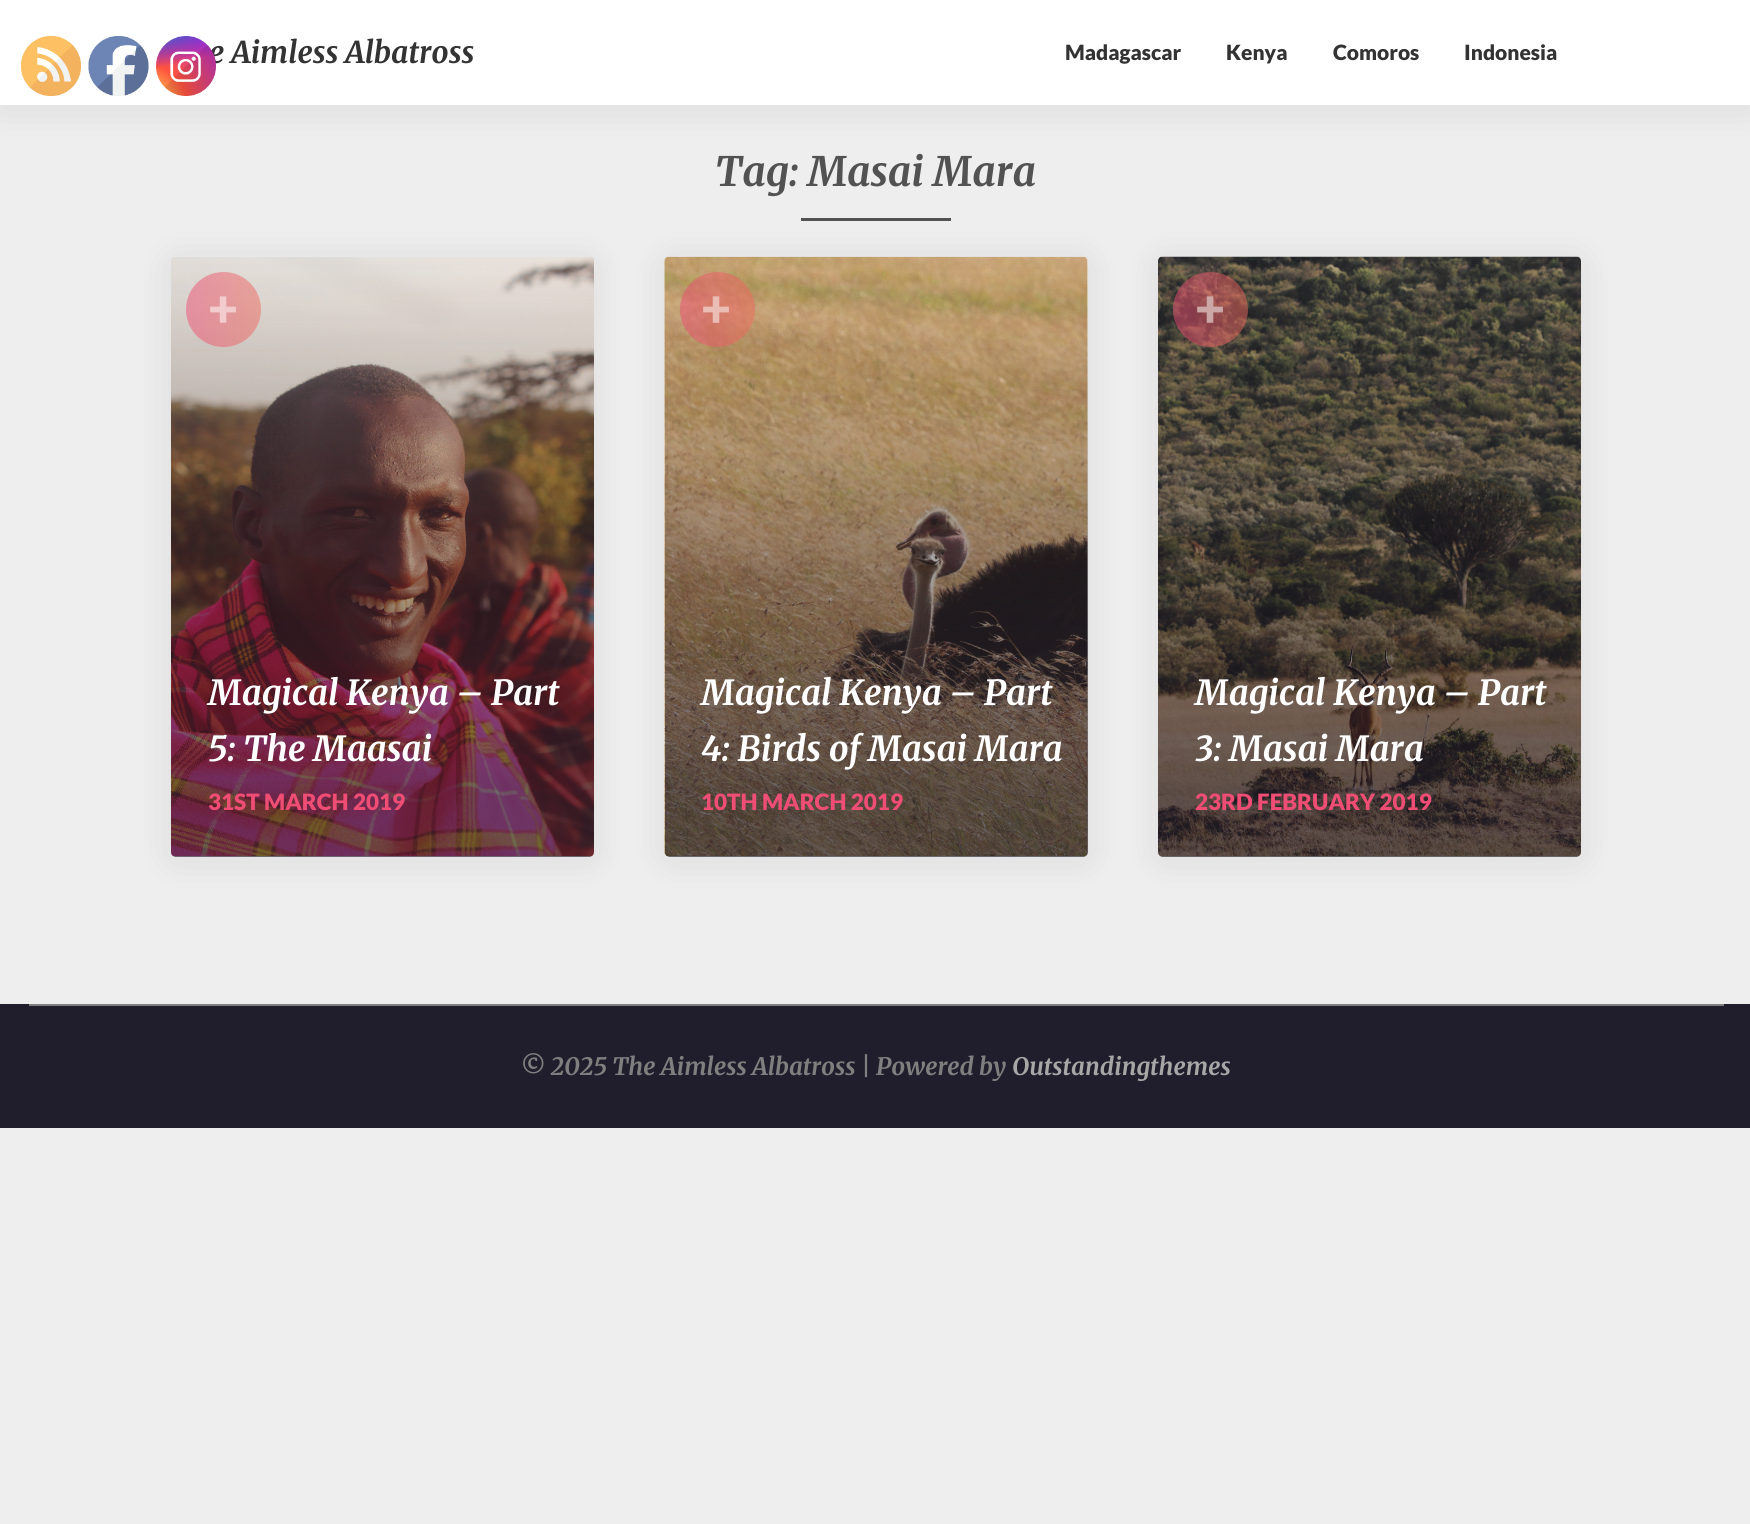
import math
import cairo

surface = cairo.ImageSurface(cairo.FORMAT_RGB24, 1750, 1524)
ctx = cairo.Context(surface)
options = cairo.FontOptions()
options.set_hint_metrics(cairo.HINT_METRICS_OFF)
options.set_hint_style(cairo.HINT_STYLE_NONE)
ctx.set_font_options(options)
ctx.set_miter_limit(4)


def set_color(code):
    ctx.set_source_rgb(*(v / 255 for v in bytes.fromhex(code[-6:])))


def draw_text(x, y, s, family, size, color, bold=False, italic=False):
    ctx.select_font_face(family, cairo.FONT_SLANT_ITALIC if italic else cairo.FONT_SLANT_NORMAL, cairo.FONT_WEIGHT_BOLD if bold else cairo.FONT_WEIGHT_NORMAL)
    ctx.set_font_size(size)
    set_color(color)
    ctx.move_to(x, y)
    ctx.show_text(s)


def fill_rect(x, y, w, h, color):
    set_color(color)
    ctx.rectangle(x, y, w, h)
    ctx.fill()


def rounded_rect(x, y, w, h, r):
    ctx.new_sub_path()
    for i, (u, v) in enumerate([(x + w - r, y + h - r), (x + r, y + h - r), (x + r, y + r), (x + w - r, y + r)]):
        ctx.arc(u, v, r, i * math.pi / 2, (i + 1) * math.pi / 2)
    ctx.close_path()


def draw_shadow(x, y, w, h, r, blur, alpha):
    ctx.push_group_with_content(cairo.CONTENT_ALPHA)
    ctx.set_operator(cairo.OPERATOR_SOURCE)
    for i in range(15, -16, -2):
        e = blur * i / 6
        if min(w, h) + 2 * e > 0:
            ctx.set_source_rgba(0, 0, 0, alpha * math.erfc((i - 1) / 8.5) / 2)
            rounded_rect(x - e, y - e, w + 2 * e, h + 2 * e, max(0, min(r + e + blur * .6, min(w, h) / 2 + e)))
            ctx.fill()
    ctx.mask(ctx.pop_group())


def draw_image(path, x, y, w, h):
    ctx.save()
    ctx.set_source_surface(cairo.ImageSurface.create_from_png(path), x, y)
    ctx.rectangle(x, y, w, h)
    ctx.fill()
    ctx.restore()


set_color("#eeeeee")
ctx.paint()
set_color("#000000")
draw_shadow(0, 3, 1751, 105, 0, 19, 0.08)
fill_rect(0, 0, 1750, 105, "#ffffff")
draw_image("assets/img1.png", 21, 36, 60, 60)
draw_image("assets/img2.png", 88, 36, 61, 60)
draw_text(209, 63, "e Aimless Albatross", "Merriweather Light", 30, "#333333", italic=True)
draw_image("assets/img3.png", 156, 36, 60, 60)
draw_text(1065, 60, "Madagascar", "Lato Black", 21, "#333333")
draw_text(1226, 60, "Kenya", "Lato Black", 21, "#333333")
draw_text(1333, 60, "Comoros", "Lato Black", 21, "#333333")
draw_text(1464, 60, "Indonesia", "Lato Black", 21, "#333333")
draw_text(715, 186, "Tag: Masai Mara", "Merriweather Light", 40.5, "#525252", italic=True)
fill_rect(801, 218, 150, 3, "#525252")
set_color("#000000")
draw_shadow(171, 260, 423, 600, 5, 19, 0.08)
set_color("#ffffff")
rounded_rect(171, 257, 423, 600, 5)
ctx.fill()
draw_image("assets/img4.png", 171, 257, 423, 600)
gradient = cairo.LinearGradient(382, 256, 383, 857)
gradient.add_color_stop_rgba(0, 0.125, 0.118, 0.173, 0)
gradient.add_color_stop_rgba(0.88, 0.125, 0.118, 0.173, 0.64)
gradient.add_color_stop_rgba(0.89, 0.125, 0.118, 0.173, 0.65)
ctx.set_source(gradient)
rounded_rect(171, 257, 423, 600, 5)
ctx.fill()
gradient = cairo.LinearGradient(186, 309, 261, 309)
gradient.add_color_stop_rgba(0, 0.933, 0.302, 0.459, 0.5)
gradient.add_color_stop_rgba(1, 0.937, 0.42, 0.365, 0.5)
ctx.set_source(gradient)
ctx.arc(223.5, 309.5, 37.5, 0, 2 * math.pi)
ctx.fill()
draw_text(208, 327, "+", "Lato Black", 52, "#f1cbcd")
draw_text(208, 705, "Magical Kenya – Part", "Merriweather Light", 34.5, "#ffffff", italic=True)
draw_text(208, 761, "5: The Maasai", "Merriweather Light", 34.5, "#ffffff", italic=True)
draw_text(208, 810, "31ST MARCH 2019", "Lato Black", 22.5, "#f04d75")
set_color("#000000")
draw_shadow(665, 260, 423, 600, 5, 19, 0.08)
set_color("#ffffff")
rounded_rect(665, 257, 423, 600, 5)
ctx.fill()
draw_image("assets/img5.png", 664, 256, 424, 601)
gradient = cairo.LinearGradient(876, 256, 876, 857)
gradient.add_color_stop_rgba(0, 0.125, 0.118, 0.173, 0)
gradient.add_color_stop_rgba(0.88, 0.125, 0.118, 0.173, 0.64)
gradient.add_color_stop_rgba(0.89, 0.125, 0.118, 0.173, 0.65)
ctx.set_source(gradient)
rounded_rect(665, 257, 423, 600, 5)
ctx.fill()
gradient = cairo.LinearGradient(680, 309, 755, 309)
gradient.add_color_stop_rgba(0, 0.933, 0.302, 0.459, 0.5)
gradient.add_color_stop_rgba(1, 0.937, 0.42, 0.365, 0.5)
ctx.set_source(gradient)
ctx.arc(717.5, 309.5, 37.5, 0, 2 * math.pi)
ctx.fill()
draw_text(701, 327, "+", "Lato Black", 52, "#eabdb5")
draw_text(701, 705, "Magical Kenya – Part", "Merriweather Light", 34.5, "#ffffff", italic=True)
draw_text(701, 761, "4: Birds of Masai Mara", "Merriweather Light", 34.5, "#ffffff", italic=True)
draw_text(701, 810, "10TH MARCH 2019", "Lato Black", 22.5, "#f04d75")
set_color("#000000")
draw_shadow(1158, 260, 423, 600, 5, 19, 0.08)
set_color("#ffffff")
rounded_rect(1158, 257, 423, 600, 5)
ctx.fill()
draw_image("assets/img6.png", 1158, 256, 423, 601)
gradient = cairo.LinearGradient(1370, 256, 1370, 857)
gradient.add_color_stop_rgba(0, 0.125, 0.118, 0.173, 0)
gradient.add_color_stop_rgba(0.88, 0.125, 0.118, 0.173, 0.64)
gradient.add_color_stop_rgba(0.89, 0.125, 0.118, 0.173, 0.65)
ctx.set_source(gradient)
rounded_rect(1158, 257, 423, 600, 5)
ctx.fill()
gradient = cairo.LinearGradient(1173, 309, 1248, 309)
gradient.add_color_stop_rgba(0, 0.933, 0.302, 0.459, 0.5)
gradient.add_color_stop_rgba(1, 0.937, 0.42, 0.365, 0.5)
ctx.set_source(gradient)
ctx.arc(1210.5, 309.5, 37.5, 0, 2 * math.pi)
ctx.fill()
draw_text(1195, 327, "+", "Lato Black", 52, "#cca7a8")
draw_text(1195, 705, "Magical Kenya – Part", "Merriweather Light", 34.5, "#ffffff", italic=True)
draw_text(1195, 761, "3: Masai Mara", "Merriweather Light", 34.5, "#ffffff", italic=True)
draw_text(1195, 810, "23RD FEBRUARY 2019", "Lato Black", 22.5, "#f04d75")
fill_rect(0, 1004, 1750, 124, "#201e2c")
fill_rect(29, 1004, 1695, 2, "#7f7f7f")
draw_text(520, 1075, "© 2025 The Aimless Albatross | Powered by", "Merriweather Light", 24, "#7f7f7f", italic=True)
draw_text(1012, 1075, "Outstandingthemes", "Merriweather Light", 24, "#a7a7a7", italic=True)
surface.write_to_png("output.png")
